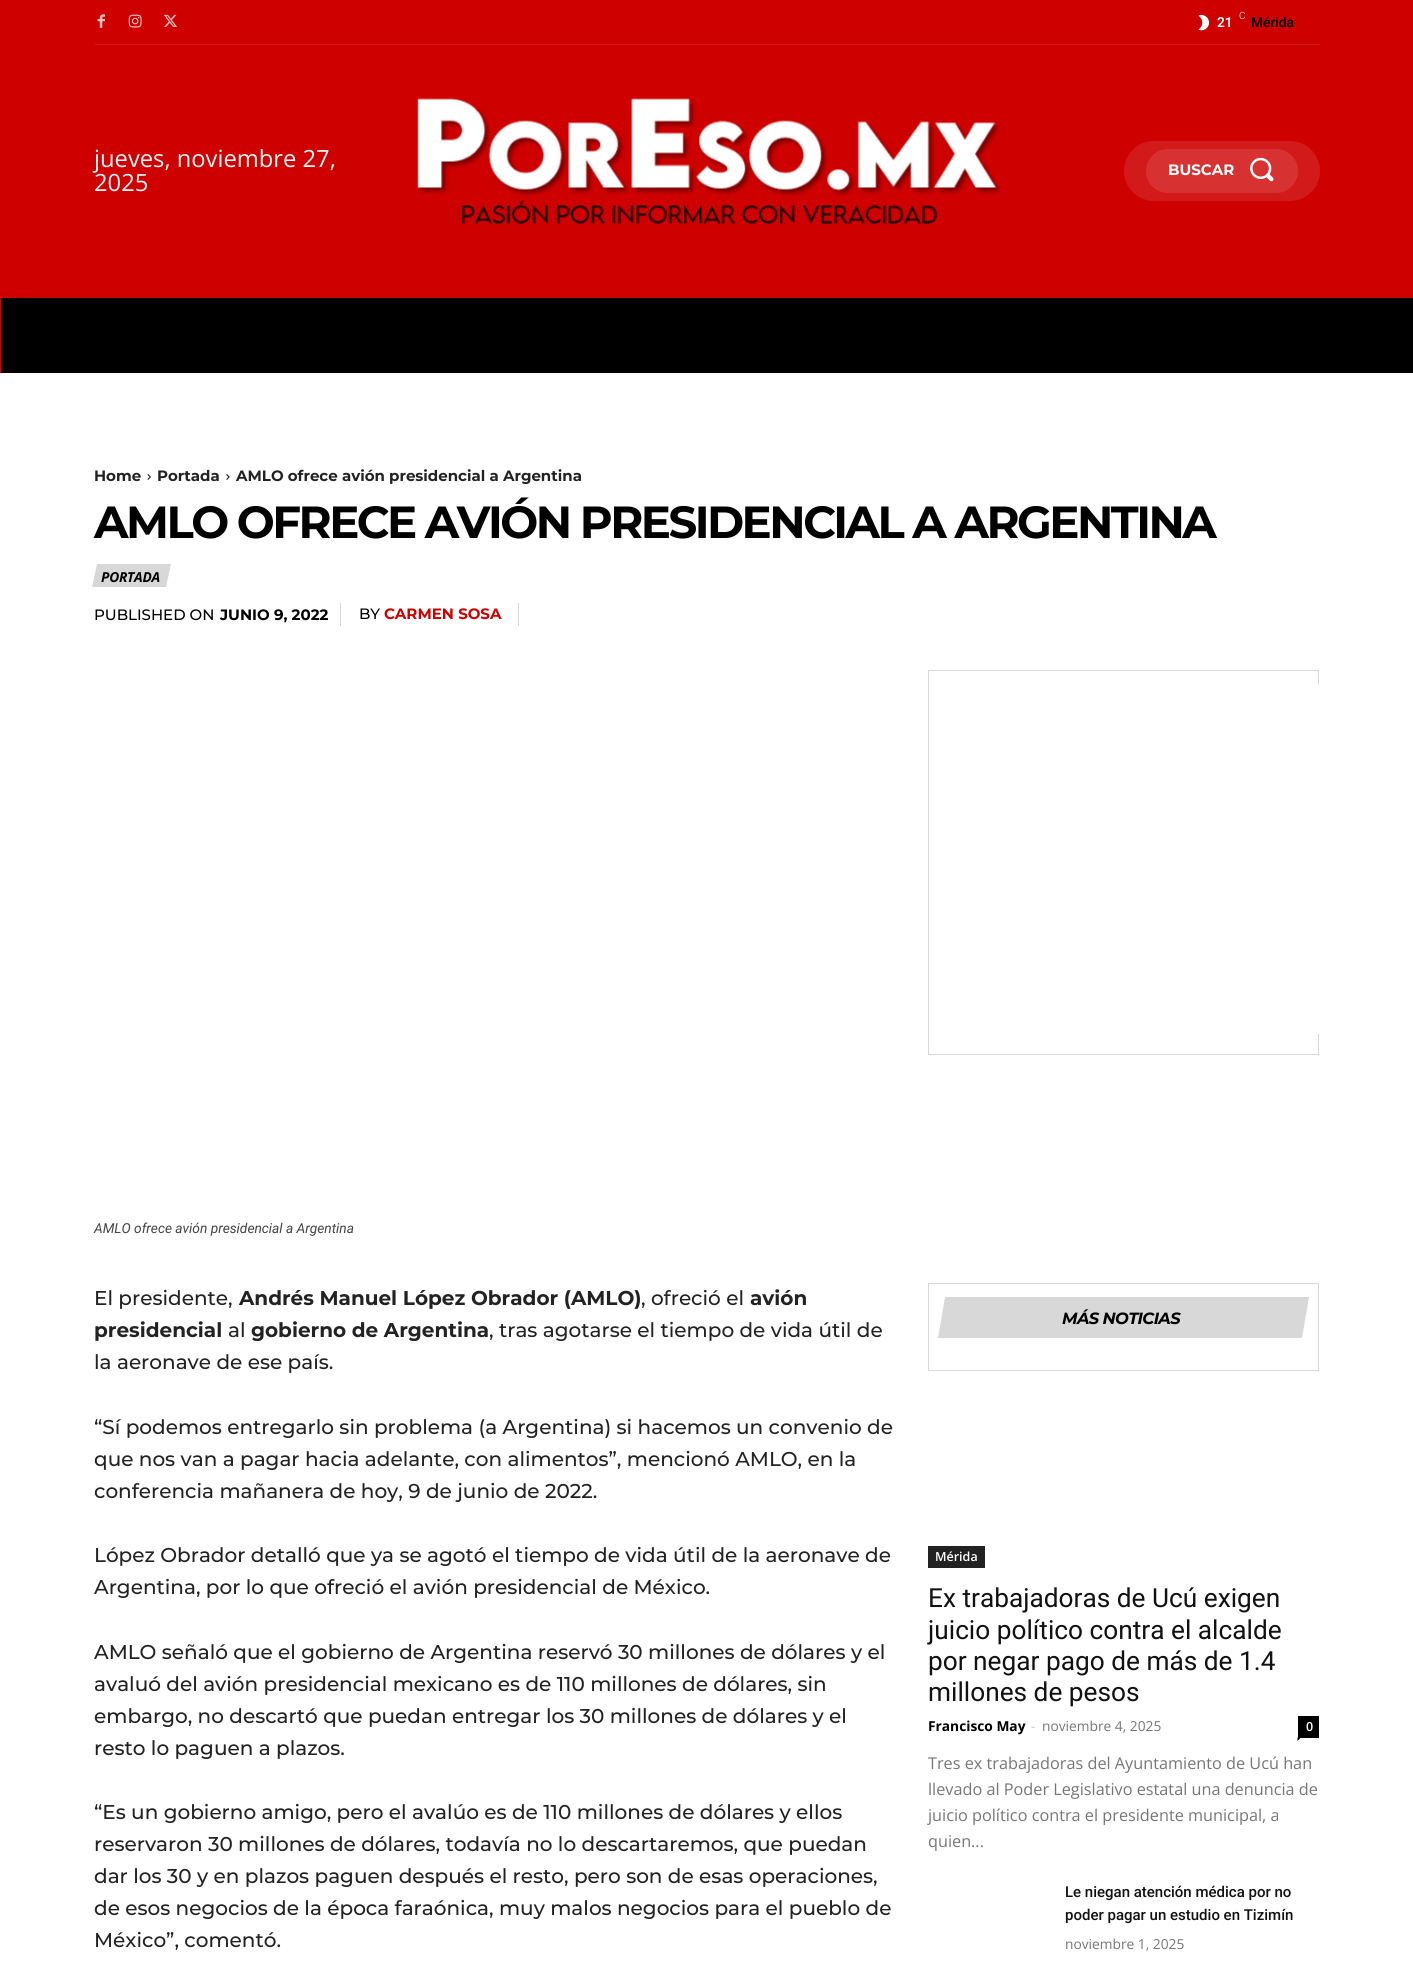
import math
import cairo

surface = cairo.ImageSurface(cairo.FORMAT_RGB24, 1413, 1985)
ctx = cairo.Context(surface)
options = cairo.FontOptions()
options.set_hint_metrics(cairo.HINT_METRICS_OFF)
options.set_hint_style(cairo.HINT_STYLE_NONE)
ctx.set_font_options(options)
ctx.set_miter_limit(4)


def set_color(code):
    ctx.set_source_rgb(*(v / 255 for v in bytes.fromhex(code[-6:])))


def draw_text(x, y, s, family, size, color, bold=False, italic=False):
    ctx.select_font_face(family, cairo.FONT_SLANT_ITALIC if italic else cairo.FONT_SLANT_NORMAL, cairo.FONT_WEIGHT_BOLD if bold else cairo.FONT_WEIGHT_NORMAL)
    ctx.set_font_size(size)
    set_color(color)
    ctx.move_to(x, y)
    ctx.show_text(s)


def draw_spaced(x, y, s, letter, word):
    ctx.move_to(x, y)
    for ch in s:
        ctx.show_text(ch)
        ctx.rel_move_to(letter + word * (ch == ' '), 0)


def fill_rect(x, y, w, h, color):
    set_color(color)
    ctx.rectangle(x, y, w, h)
    ctx.fill()


def rounded_rect(x, y, w, h, r):
    ctx.new_sub_path()
    for i, (u, v) in enumerate([(x + w - r, y + h - r), (x + r, y + h - r), (x + r, y + r), (x + w - r, y + r)]):
        ctx.arc(u, v, r, i * math.pi / 2, (i + 1) * math.pi / 2)
    ctx.close_path()


def draw_image(path, x, y, w, h):
    ctx.save()
    ctx.set_source_surface(cairo.ImageSurface.create_from_png(path), x, y)
    ctx.rectangle(x, y, w, h)
    ctx.fill()
    ctx.restore()


set_color("#ffffff")
ctx.paint()
fill_rect(0, 0, 1413, 373, "#ce0000")
fill_rect(95, 44, 1225, 1, "#d31a1a")
draw_image("assets/img1.png", 97, 14, 8, 14)
draw_image("assets/img2.png", 128, 14, 14, 14)
draw_image("assets/img3.png", 164, 14, 13, 13)
draw_image("assets/img4.png", 1198, 14, 11, 17)
draw_text(1239, 19, "C", "Roboto Light", 10, "#ffffff")
draw_text(1217, 27, "21", "Roboto SemiBold", 13.75, "#ffffff")
draw_text(1251, 27, "Mérida", "Roboto Medium", 13.75, "#000000")
draw_text(94, 167, "jueves, noviembre 27,", "Open Sans", 23.75, "#f4f4f4")
draw_text(94, 191, "2025", "Open Sans", 23.75, "#f4f4f4")
draw_image("assets/img5.png", 417, 98, 584, 126)
set_color("#d31a1a")
rounded_rect(1124, 141, 196, 60, 30)
ctx.fill()
set_color("#d73131")
rounded_rect(1146, 149, 152, 44, 22)
ctx.fill()
draw_text(1168, 175, "BUSCAR", "Montserrat", 15, "#ffffff", bold=True)
draw_image("assets/img6.png", 1250, 157, 24, 25)
fill_rect(1, 298, 1412, 75, "#000000")
draw_text(94, 481, "Home", "Montserrat", 15, "#222222", bold=True)
draw_image("assets/img7.png", 147, 474, 4, 6)
draw_text(157, 481, "Portada", "Montserrat", 15, "#222222", bold=True)
draw_image("assets/img8.png", 226, 474, 4, 6)
draw_text(236, 481, "AMLO ofrece avión presidencial a Argentina", "Montserrat", 15, "#222222", bold=True)
ctx.set_font_size(45)
set_color("#000000")
draw_spaced(94, 538, "AMLO OFRECE AVIÓN PRESIDENCIAL A ARGENTINA", -2.5, 0)
set_color("#d8d8d8")
ctx.new_path()
ctx.move_to(97, 564)
ctx.line_to(171, 564)
ctx.line_to(166, 587)
ctx.line_to(92, 587)
ctx.close_path()
ctx.fill()
ctx.select_font_face("Open Sans", cairo.FONT_SLANT_ITALIC, cairo.FONT_WEIGHT_BOLD)
ctx.set_font_size(13.75)
set_color("#000000")
draw_spaced(101, 582, "PORTADA", -0.25, 0)
fill_rect(340, 603, 1, 23, "#d8d8d8")
draw_text(94, 620, "PUBLISHED ON", "Montserrat Medium", 15, "#000000")
draw_text(220, 620, "JUNIO 9, 2022", "Montserrat", 15, "#000000", bold=True)
fill_rect(518, 603, 1, 23, "#d8d8d8")
draw_text(359, 619, "BY", "Montserrat Medium", 15, "#000000")
draw_text(384, 619, "CARMEN SOSA", "Montserrat", 15, "#ce0000", bold=True)
ctx.rectangle(928.5, 670.5, 390, 384)
set_color("#d8d8d8")
ctx.set_line_width(1)
ctx.stroke()
fill_rect(1318, 684, 1, 350, "#ffffff")
draw_text(94, 1233, "AMLO ofrece avión presidencial a Argentina", "Roboto", 13.75, "#444444", italic=True)
draw_text(94, 1305, "El presidente,", "Montserrat Medium", 20, "#222222")
draw_text(239, 1305, "Andrés Manuel López Obrador (AMLO)", "Montserrat", 20, "#222222", bold=True)
draw_text(641, 1305, ", ofreció el", "Montserrat Medium", 20, "#222222")
draw_text(750, 1305, "avión", "Montserrat", 20, "#222222", bold=True)
draw_text(94, 1337, "presidencial", "Montserrat", 20, "#222222", bold=True)
draw_text(228, 1337, "al", "Montserrat Medium", 20, "#222222")
draw_text(251, 1337, "gobierno de Argentina", "Montserrat", 20, "#222222", bold=True)
draw_text(489, 1337, ", tras agotarse el tiempo de vida útil de", "Montserrat Medium", 20, "#222222")
draw_text(94, 1369, "la aeronave de ese país.", "Montserrat Medium", 20, "#222222")
draw_text(94, 1434, "“Sí podemos entregarlo sin problema (a Argentina) si hacemos un convenio de", "Montserrat Medium", 20, "#222222")
draw_text(94, 1466, "que nos van a pagar hacia adelante, con alimentos”, mencionó AMLO, en la", "Montserrat Medium", 20, "#222222")
draw_text(94, 1498, "conferencia mañanera de hoy, 9 de junio de 2022.", "Montserrat Medium", 20, "#222222")
draw_text(94, 1562, "López Obrador detalló que ya se agotó el tiempo de vida útil de la aeronave de", "Montserrat Medium", 20, "#222222")
draw_text(94, 1594, "Argentina, por lo que ofreció el avión presidencial de México.", "Montserrat Medium", 20, "#222222")
draw_text(94, 1659, "AMLO señaló que el gobierno de Argentina reservó 30 millones de dólares y el", "Montserrat Medium", 20, "#222222")
draw_text(94, 1691, "avaluó del avión presidencial mexicano es de 110 millones de dólares, sin", "Montserrat Medium", 20, "#222222")
draw_text(94, 1723, "embargo, no descartó que puedan entregar los 30 millones de dólares y el", "Montserrat Medium", 20, "#222222")
draw_text(94, 1755, "resto lo paguen a plazos.", "Montserrat Medium", 20, "#222222")
draw_text(94, 1819, "“Es un gobierno amigo, pero el avalúo es de 110 millones de dólares y ellos", "Montserrat Medium", 20, "#222222")
draw_text(94, 1851, "reservaron 30 millones de dólares, todavía no lo descartaremos, que puedan", "Montserrat Medium", 20, "#222222")
draw_text(94, 1883, "dar los 30 y en plazos paguen después el resto, pero son de esas operaciones,", "Montserrat Medium", 20, "#222222")
draw_text(94, 1915, "de esos negocios de la época faraónica, muy malos negocios para el pueblo de", "Montserrat Medium", 20, "#222222")
draw_text(94, 1947, "México”, comentó.", "Montserrat Medium", 20, "#222222")
ctx.rectangle(928.5, 1283.5, 390, 87)
set_color("#d8d8d8")
ctx.stroke()
ctx.new_path()
ctx.move_to(945, 1297)
ctx.line_to(1309, 1297)
ctx.line_to(1302, 1338)
ctx.line_to(938, 1338)
ctx.close_path()
ctx.fill()
ctx.select_font_face("Montserrat", cairo.FONT_SLANT_ITALIC, cairo.FONT_WEIGHT_BOLD)
ctx.set_font_size(16.25)
set_color("#000000")
draw_spaced(1062, 1324, "MÁS NOTICIAS", -0.6, 0)
fill_rect(928, 1546, 57, 22, "#222222")
draw_text(935, 1561, "Mérida", "Open Sans SemiBold", 12.5, "#ffffff")
draw_text(928, 1607, "Ex trabajadoras de Ucú exigen", "Roboto", 26.25, "#111111")
draw_text(928, 1639, "juicio político contra el alcalde", "Roboto", 26.25, "#111111")
draw_text(928, 1670, "por negar pago de más de 1.4", "Roboto", 26.25, "#111111")
draw_text(928, 1701, "millones de pesos", "Roboto", 26.25, "#111111")
draw_text(928, 1731, "Francisco May", "Open Sans", 13.75, "#000000", bold=True)
draw_text(1031, 1731, "-", "Open Sans", 13.75, "#cccccc")
draw_text(1042, 1731, "noviembre 4, 2025", "Open Sans", 13.75, "#767676")
fill_rect(1298, 1716, 21, 22, "#000000")
draw_text(1306, 1731, "0", "Open Sans SemiBold", 12.5, "#ffffff")
set_color("#000000")
ctx.new_path()
ctx.move_to(1297.5, 1737.5)
ctx.line_to(1301, 1737.5)
ctx.line_to(1297.5, 1741)
ctx.close_path()
ctx.fill()
draw_text(928, 1769, "Tres ex trabajadoras del Ayuntamiento de Ucú han", "Open Sans", 16.25, "#767676")
draw_text(928, 1795, "llevado al Poder Legislativo estatal una denuncia de", "Open Sans", 16.25, "#767676")
draw_text(928, 1821, "juicio político contra el presidente municipal, a", "Open Sans", 16.25, "#767676")
draw_text(928, 1847, "quien...", "Open Sans", 16.25, "#767676")
draw_text(1065, 1897, "Le niegan atención médica por no", "Roboto Medium", 15, "#111111")
draw_text(1065, 1920, "poder pagar un estudio en Tizimín", "Roboto Medium", 15, "#111111")
draw_text(1065, 1949, "noviembre 1, 2025", "Open Sans", 13.75, "#767676")
surface.write_to_png("output.png")
